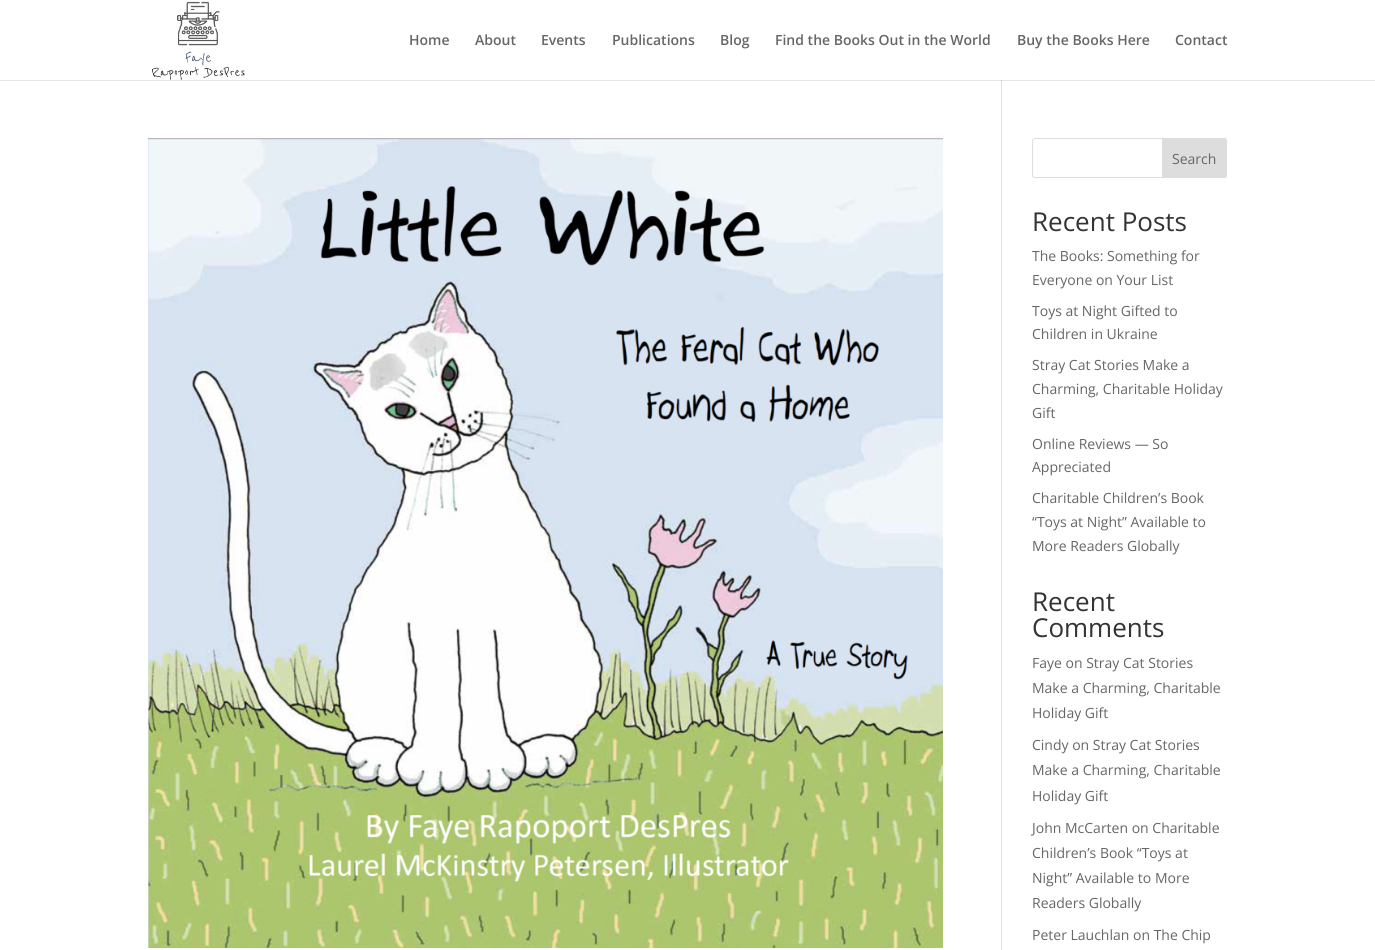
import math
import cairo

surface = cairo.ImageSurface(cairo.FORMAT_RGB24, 1375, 950)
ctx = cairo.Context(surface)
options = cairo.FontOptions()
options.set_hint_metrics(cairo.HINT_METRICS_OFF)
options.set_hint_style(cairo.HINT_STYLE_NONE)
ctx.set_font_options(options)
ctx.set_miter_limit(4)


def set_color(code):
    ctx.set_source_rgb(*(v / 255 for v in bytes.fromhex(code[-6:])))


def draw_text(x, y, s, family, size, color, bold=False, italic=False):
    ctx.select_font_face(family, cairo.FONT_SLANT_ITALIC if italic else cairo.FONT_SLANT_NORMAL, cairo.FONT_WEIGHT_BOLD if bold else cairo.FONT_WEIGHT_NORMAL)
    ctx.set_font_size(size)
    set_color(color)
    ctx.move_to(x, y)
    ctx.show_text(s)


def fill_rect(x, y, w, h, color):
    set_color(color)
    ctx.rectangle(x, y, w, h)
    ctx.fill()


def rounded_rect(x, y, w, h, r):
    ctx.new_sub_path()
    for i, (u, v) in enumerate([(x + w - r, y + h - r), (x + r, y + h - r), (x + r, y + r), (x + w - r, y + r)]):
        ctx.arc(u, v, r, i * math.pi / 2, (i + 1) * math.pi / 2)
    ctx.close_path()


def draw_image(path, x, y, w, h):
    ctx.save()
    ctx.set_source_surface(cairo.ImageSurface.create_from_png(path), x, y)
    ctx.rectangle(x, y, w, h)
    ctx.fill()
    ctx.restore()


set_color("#ffffff")
ctx.paint()
fill_rect(1001, 80, 1, 870, "#e2e2e2")
ctx.set_source_rgba(0, 0, 0, 0.1)
ctx.rectangle(0, 80, 1375, 1)
ctx.fill()
draw_image("assets/img1.png", 151, 1, 94, 79)
draw_text(409, 45, "Home", "Open Sans SemiBold", 14, "#666666")
draw_text(475, 45, "About", "Open Sans SemiBold", 14, "#666666")
draw_text(541, 45, "Events", "Open Sans SemiBold", 14, "#666666")
draw_text(612, 45, "Publications", "Open Sans SemiBold", 14, "#666666")
draw_text(720, 45, "Blog", "Open Sans SemiBold", 14, "#666666")
draw_text(775, 45, "Find the Books Out in the World", "Open Sans SemiBold", 14, "#666666")
draw_text(1017, 45, "Buy the Books Here", "Open Sans SemiBold", 14, "#666666")
draw_text(1175, 45, "Contact", "Open Sans SemiBold", 14, "#666666")
draw_image("assets/img2.png", 148, 138, 795, 810)
rounded_rect(1032.5, 138.5, 194, 39, 2.5)
set_color("#dddddd")
ctx.set_line_width(1)
ctx.stroke()
ctx.new_path()
ctx.move_to(1162.5, 138.5)
ctx.line_to(1224, 138.5)
ctx.curve_to(1225.5, 138.5, 1226.5, 139.5, 1226.5, 141)
ctx.line_to(1226.5, 175)
ctx.curve_to(1226.5, 176.5, 1225.5, 177.5, 1224, 177.5)
ctx.line_to(1162.5, 177.5)
ctx.close_path()
ctx.fill_preserve()
ctx.stroke()
draw_text(1172, 164, "Search", "Open Sans", 14, "#666666")
draw_text(1032, 231, "Recent Posts", "Open Sans", 26, "#333333")
draw_text(1032, 261, "The Books: Something for", "Open Sans", 14, "#666666")
draw_text(1032, 285, "Everyone on Your List", "Open Sans", 14, "#666666")
draw_text(1032, 316, "Toys at Night Gifted to", "Open Sans", 14, "#666666")
draw_text(1032, 339, "Children in Ukraine", "Open Sans", 14, "#666666")
draw_text(1032, 370, "Stray Cat Stories Make a", "Open Sans", 14, "#666666")
draw_text(1032, 394, "Charming, Charitable Holiday", "Open Sans", 14, "#666666")
draw_text(1032, 418, "Gift", "Open Sans", 14, "#666666")
draw_text(1032, 449, "Online Reviews — So", "Open Sans", 14, "#666666")
draw_text(1032, 472, "Appreciated", "Open Sans", 14, "#666666")
draw_text(1032, 503, "Charitable Children’s Book", "Open Sans", 14, "#666666")
draw_text(1032, 527, "“Toys at Night” Available to", "Open Sans", 14, "#666666")
draw_text(1032, 551, "More Readers Globally", "Open Sans", 14, "#666666")
draw_text(1032, 611, "Recent", "Open Sans", 26, "#333333")
draw_text(1032, 637, "Comments", "Open Sans", 26, "#333333")
draw_text(1032, 668, "Faye on Stray Cat Stories", "Open Sans", 14, "#666666")
draw_text(1032, 693, "Make a Charming, Charitable", "Open Sans", 14, "#666666")
draw_text(1032, 718, "Holiday Gift", "Open Sans", 14, "#666666")
draw_text(1032, 750, "Cindy on Stray Cat Stories", "Open Sans", 14, "#666666")
draw_text(1032, 775, "Make a Charming, Charitable", "Open Sans", 14, "#666666")
draw_text(1032, 801, "Holiday Gift", "Open Sans", 14, "#666666")
draw_text(1032, 833, "John McCarten on Charitable", "Open Sans", 14, "#666666")
draw_text(1032, 858, "Children’s Book “Toys at", "Open Sans", 14, "#666666")
draw_text(1032, 883, "Night” Available to More", "Open Sans", 14, "#666666")
draw_text(1032, 908, "Readers Globally", "Open Sans", 14, "#666666")
draw_text(1032, 940, "Peter Lauchlan on The Chip", "Open Sans", 14, "#666666")
surface.write_to_png("output.png")
